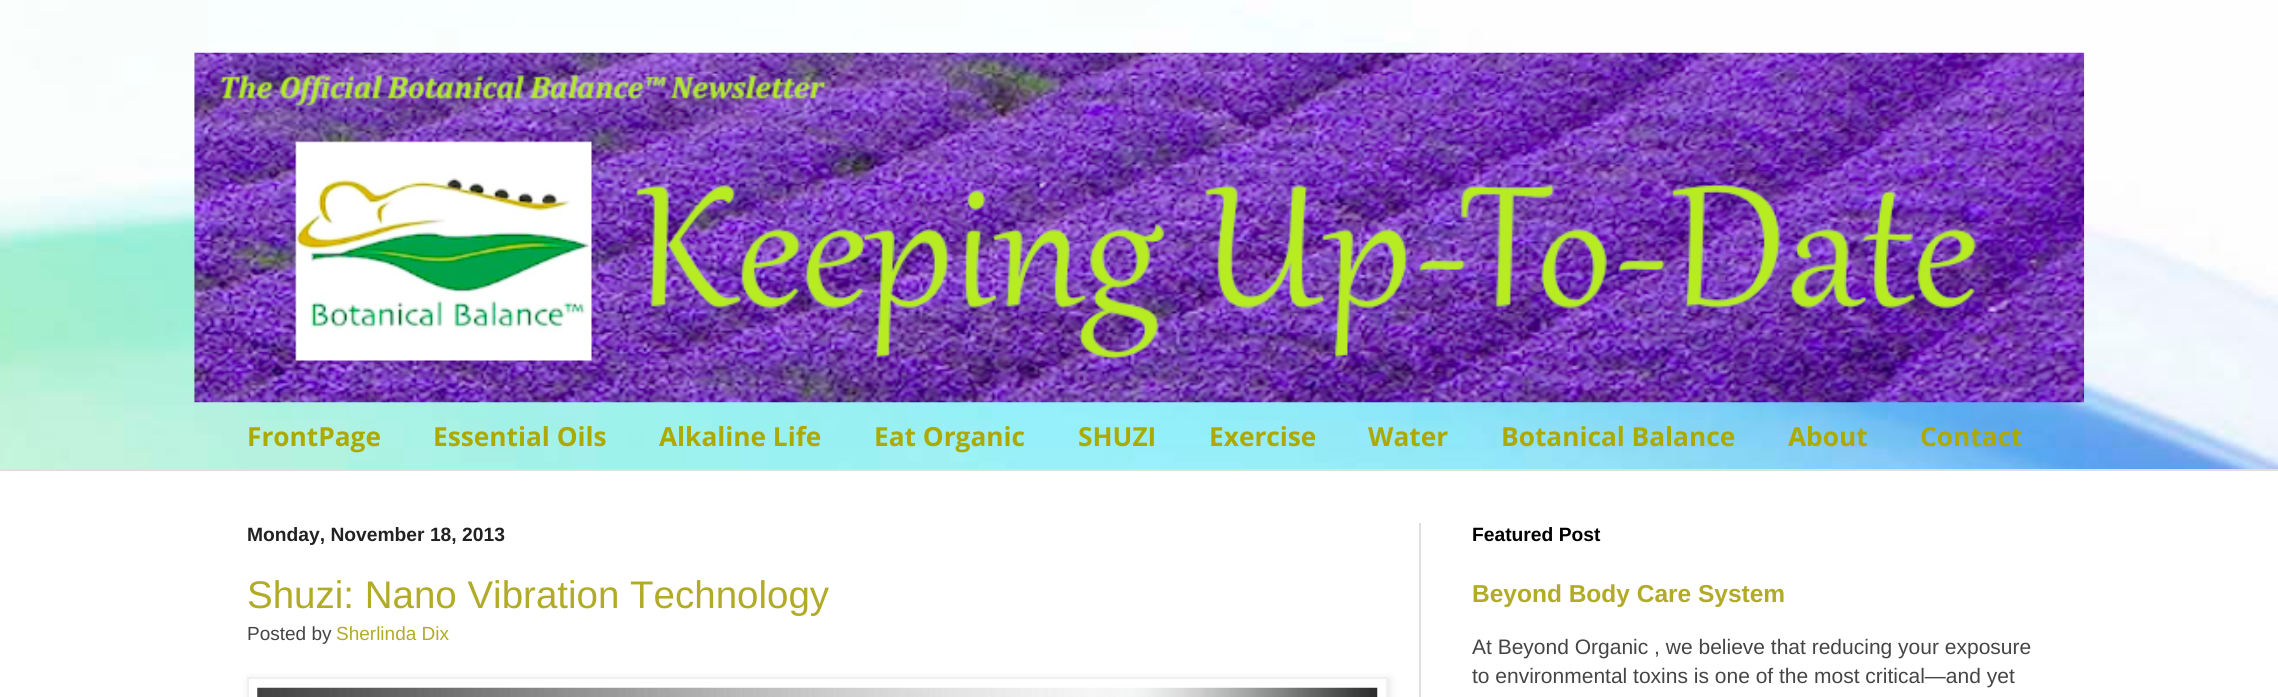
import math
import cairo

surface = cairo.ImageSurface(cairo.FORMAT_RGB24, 2278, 697)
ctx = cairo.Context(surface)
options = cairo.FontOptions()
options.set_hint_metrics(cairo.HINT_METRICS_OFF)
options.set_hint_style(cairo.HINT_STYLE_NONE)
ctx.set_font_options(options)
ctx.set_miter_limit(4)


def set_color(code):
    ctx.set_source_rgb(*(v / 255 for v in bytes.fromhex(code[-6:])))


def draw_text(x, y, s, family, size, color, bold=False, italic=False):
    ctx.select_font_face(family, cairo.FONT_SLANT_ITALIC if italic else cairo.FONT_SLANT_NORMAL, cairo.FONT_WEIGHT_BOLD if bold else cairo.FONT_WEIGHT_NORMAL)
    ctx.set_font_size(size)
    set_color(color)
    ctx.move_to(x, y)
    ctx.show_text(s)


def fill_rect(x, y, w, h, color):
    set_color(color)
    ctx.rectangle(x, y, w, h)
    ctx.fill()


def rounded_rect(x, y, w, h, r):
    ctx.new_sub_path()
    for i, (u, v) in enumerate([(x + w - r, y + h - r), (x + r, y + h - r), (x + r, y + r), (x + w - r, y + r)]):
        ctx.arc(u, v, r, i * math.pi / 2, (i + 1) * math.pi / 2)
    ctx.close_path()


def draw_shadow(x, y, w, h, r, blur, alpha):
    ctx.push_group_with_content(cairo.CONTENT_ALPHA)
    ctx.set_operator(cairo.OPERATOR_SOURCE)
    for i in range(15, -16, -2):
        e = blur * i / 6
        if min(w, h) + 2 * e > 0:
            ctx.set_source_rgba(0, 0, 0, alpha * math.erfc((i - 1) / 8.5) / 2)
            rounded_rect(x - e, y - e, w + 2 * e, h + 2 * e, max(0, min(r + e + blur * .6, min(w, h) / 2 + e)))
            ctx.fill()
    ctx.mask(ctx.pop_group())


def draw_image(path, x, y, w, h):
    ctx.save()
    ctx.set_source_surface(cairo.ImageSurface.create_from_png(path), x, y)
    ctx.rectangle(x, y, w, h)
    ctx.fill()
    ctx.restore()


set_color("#ffffff")
ctx.paint()
draw_image("assets/img1.png", 0, 0, 2278, 469)
draw_image("assets/img2.png", 194, 52, 1891, 351)
draw_text(247, 446, "FrontPage", "Open Sans", 26.25, "#acaa00", bold=True)
draw_text(433, 446, "Essential Oils", "Open Sans", 26.25, "#acaa00", bold=True)
draw_text(659, 446, "Alkaline Life", "Open Sans", 26.25, "#acaa00", bold=True)
draw_text(874, 446, "Eat Organic", "Open Sans", 26.25, "#acaa00", bold=True)
draw_text(1078, 446, "SHUZI", "Open Sans", 26.25, "#acaa00", bold=True)
draw_text(1209, 446, "Exercise", "Open Sans", 26.25, "#acaa00", bold=True)
draw_text(1368, 446, "Water", "Open Sans", 26.25, "#acaa00", bold=True)
draw_text(1501, 446, "Botanical Balance", "Open Sans", 26.25, "#acaa00", bold=True)
draw_text(1788, 446, "About", "Open Sans", 26.25, "#acaa00", bold=True)
draw_text(1920, 446, "Contact", "Open Sans", 26.25, "#acaa00", bold=True)
fill_rect(0, 469, 2278, 2, "#dfdfdf")
fill_rect(1419, 523, 2, 174, "#dfdfdf")
draw_text(247, 541, "Monday, November 18, 2013", "Liberation Sans", 19.25, "#222222", bold=True)
draw_text(247, 608, "Shuzi: Nano Vibration Technology", "Liberation Sans", 38.5, "#b2ab27")
draw_text(247, 640, "Posted by", "Liberation Sans", 19, "#454545")
draw_text(336, 640, "Sherlinda Dix", "Liberation Sans", 19, "#b2ab27")
set_color("#000000")
draw_shadow(249, 679, 1141, 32, 0, 4.5, 0.1)
set_color("#ffffff")
ctx.rectangle(248, 678, 1139, 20)
ctx.fill_preserve()
set_color("#f0f0f0")
ctx.stroke()
draw_image("assets/img3.png", 257, 687, 1121, 10)
draw_text(1472, 541, "Featured Post", "Liberation Sans", 19.25, "#000000", bold=True)
draw_text(1472, 602, "Beyond Body Care System", "Liberation Sans", 24.5, "#b2ab27", bold=True)
draw_text(1472, 654, "At Beyond Organic , we believe that reducing your exposure", "Liberation Sans", 21, "#454545")
draw_text(1472, 683, "to environmental toxins is one of the most critical—and yet", "Liberation Sans", 21, "#454545")
surface.write_to_png("output.png")
